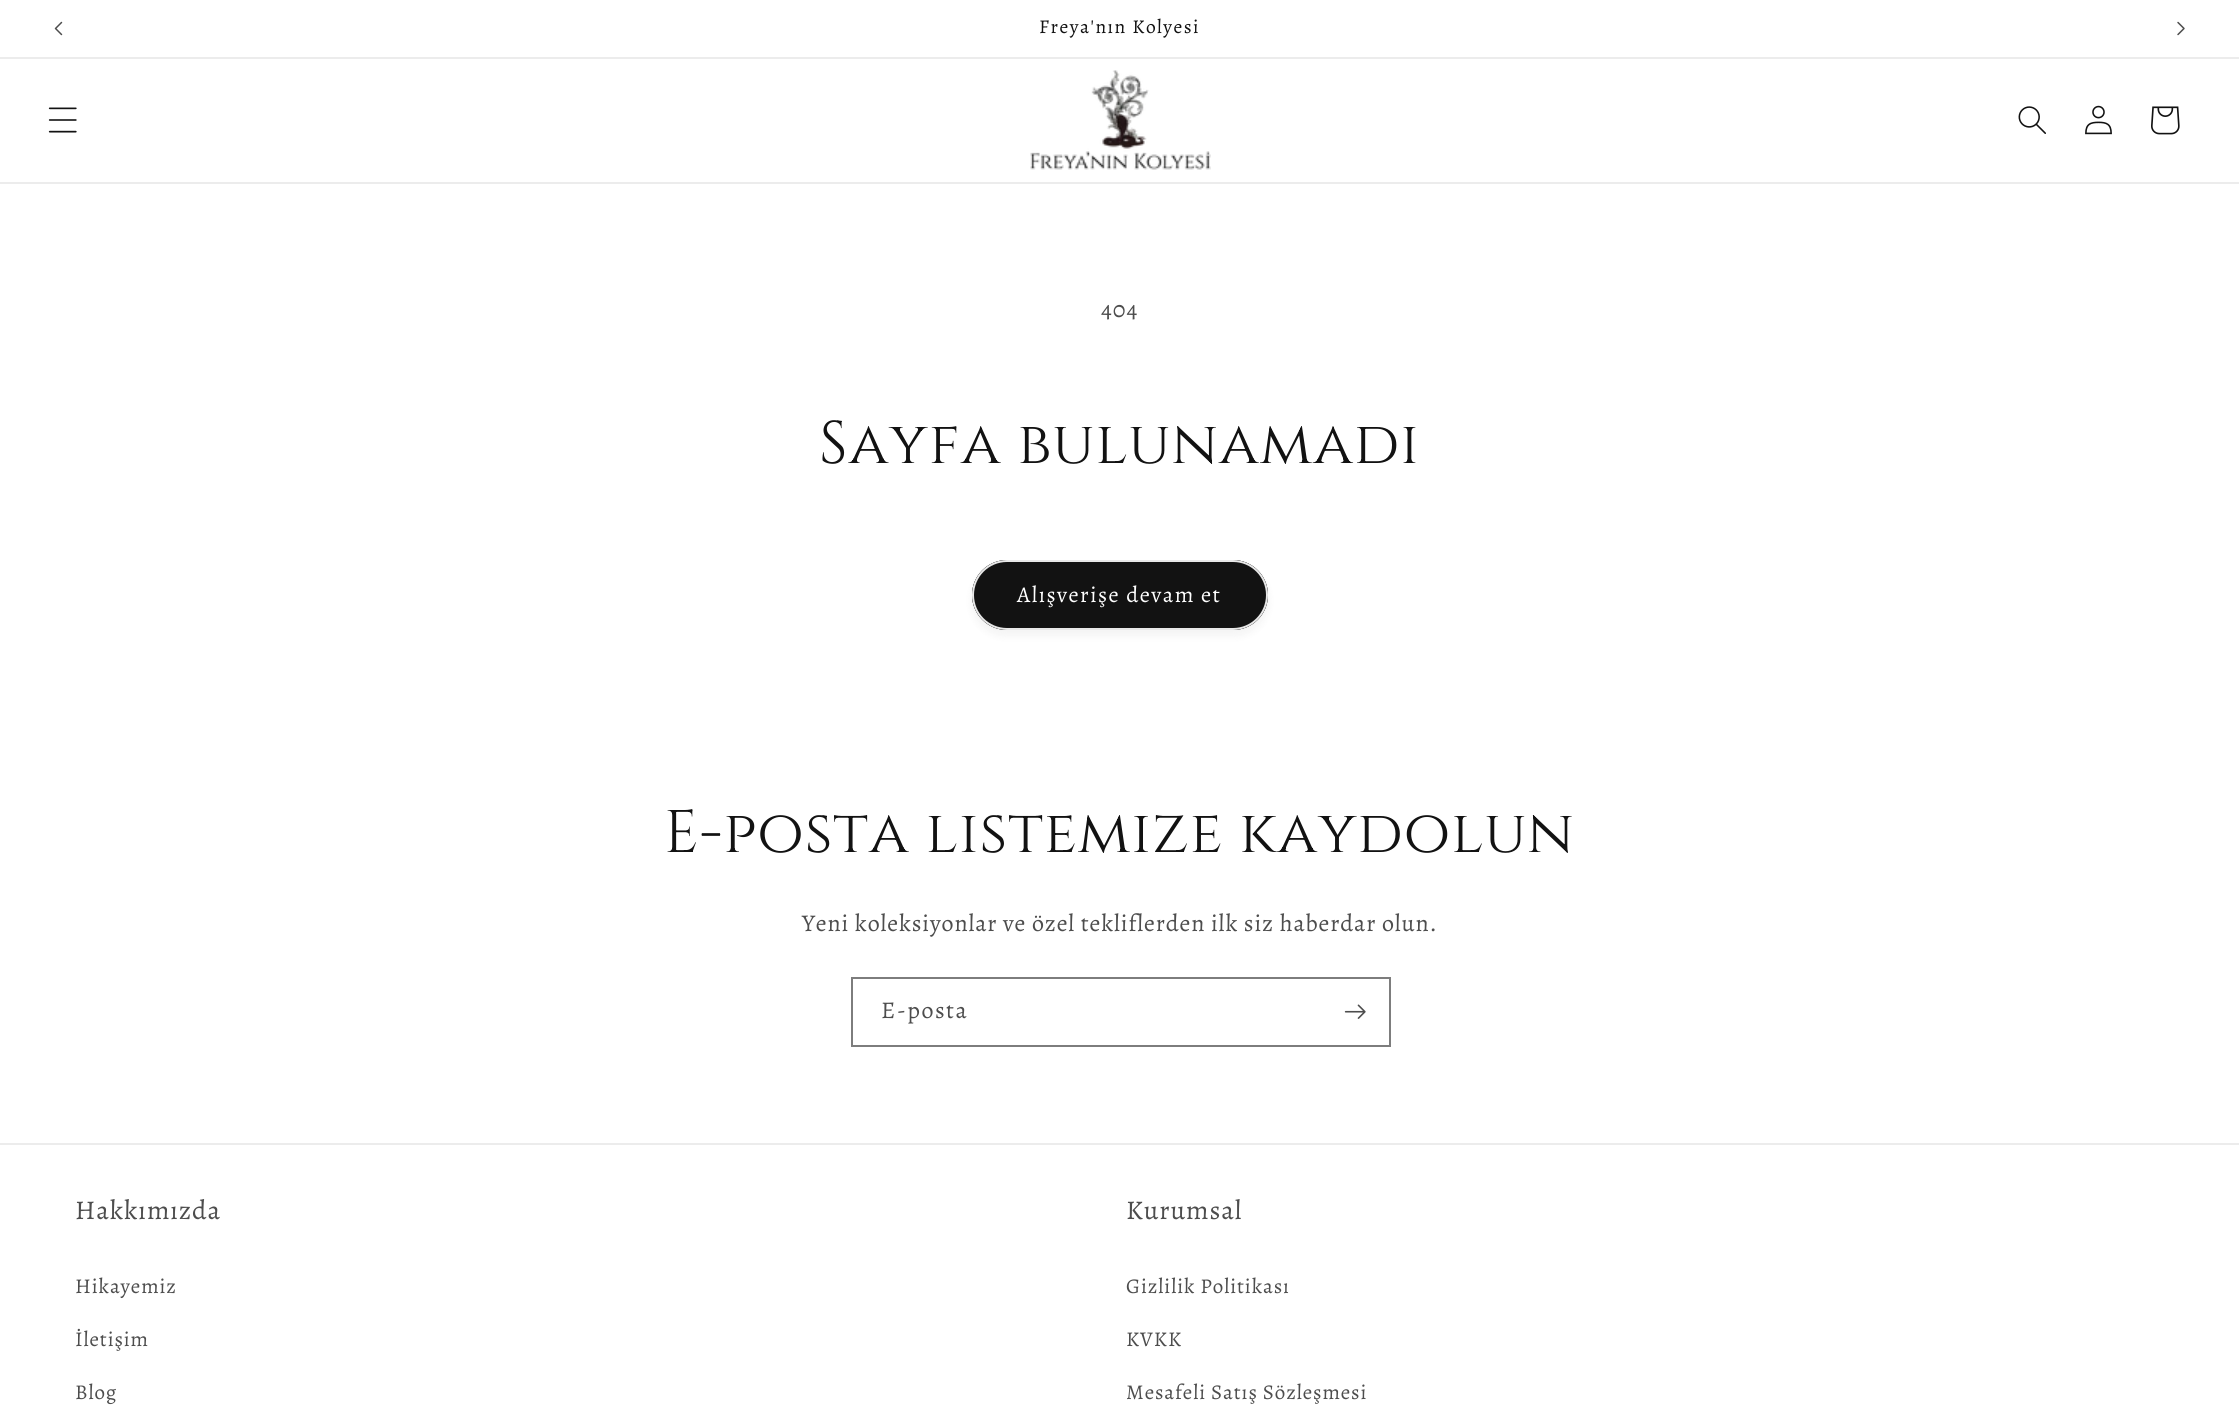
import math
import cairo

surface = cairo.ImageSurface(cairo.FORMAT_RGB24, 2239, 1412)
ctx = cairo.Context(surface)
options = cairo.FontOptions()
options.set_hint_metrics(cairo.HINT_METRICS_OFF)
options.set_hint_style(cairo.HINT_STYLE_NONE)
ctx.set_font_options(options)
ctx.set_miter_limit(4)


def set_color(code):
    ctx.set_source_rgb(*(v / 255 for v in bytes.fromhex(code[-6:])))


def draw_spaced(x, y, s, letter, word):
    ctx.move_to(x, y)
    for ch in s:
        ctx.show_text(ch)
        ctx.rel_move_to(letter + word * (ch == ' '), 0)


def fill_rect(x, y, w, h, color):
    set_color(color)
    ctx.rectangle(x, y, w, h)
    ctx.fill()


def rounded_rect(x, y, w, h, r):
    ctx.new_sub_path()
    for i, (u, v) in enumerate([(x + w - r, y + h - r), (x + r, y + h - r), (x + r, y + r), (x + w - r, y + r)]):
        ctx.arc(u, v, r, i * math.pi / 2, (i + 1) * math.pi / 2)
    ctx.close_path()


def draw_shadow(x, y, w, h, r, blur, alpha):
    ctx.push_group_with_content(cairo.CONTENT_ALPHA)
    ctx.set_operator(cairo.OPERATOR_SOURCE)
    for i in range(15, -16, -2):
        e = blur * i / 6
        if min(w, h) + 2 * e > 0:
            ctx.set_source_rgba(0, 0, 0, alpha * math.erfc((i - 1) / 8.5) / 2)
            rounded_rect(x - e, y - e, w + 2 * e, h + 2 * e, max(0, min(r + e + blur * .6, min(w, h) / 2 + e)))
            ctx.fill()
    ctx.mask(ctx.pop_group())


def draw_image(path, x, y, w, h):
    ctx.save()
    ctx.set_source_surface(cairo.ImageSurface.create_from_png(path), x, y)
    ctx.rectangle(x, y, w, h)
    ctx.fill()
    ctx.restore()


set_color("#ffffff")
ctx.paint()
fill_rect(0, 57, 2239, 2, "#ececec")
draw_image("assets/img1.png", 54, 21, 9, 15)
ctx.select_font_face("Alegreya")
ctx.set_font_size(19.5)
set_color("#121212")
draw_spaced(1039, 33, "Freya'nın Kolyesi", 1.5, 0)
draw_image("assets/img2.png", 2177, 21, 8, 15)
fill_rect(0, 182, 2239, 2, "#ececec")
draw_image("assets/img3.png", 48, 107, 29, 26)
draw_image("assets/img4.png", 1030, 70, 181, 100)
draw_image("assets/img5.png", 2018, 106, 28, 28)
draw_image("assets/img6.png", 2085, 105, 27, 30)
draw_image("assets/img7.png", 2151, 106, 29, 29)
ctx.set_font_size(24)
set_color("#4d4d4d")
draw_spaced(1101, 317, "404", 0.9, 0)
ctx.select_font_face("Cinzel")
ctx.set_font_size(60)
set_color("#121212")
draw_spaced(819, 463, "Sayfa bulunamadı", 0.9, 0)
set_color("#121212")
draw_shadow(972, 566, 296, 70, 35, 4, 0.05)
set_color("#121212")
rounded_rect(972, 560, 296, 70, 35)
ctx.fill()
rounded_rect(973, 561, 294, 68, 34)
ctx.stroke()
rounded_rect(973, 561, 294, 68, 34)
ctx.set_source_rgba(1, 1, 1, 0.9)
ctx.stroke()
ctx.select_font_face("Alegreya")
ctx.set_font_size(22.5)
set_color("#ffffff")
draw_spaced(1017, 602, "Alışverişe devam et", 1.5, 0)
ctx.select_font_face("Cinzel")
ctx.set_font_size(60)
set_color("#121212")
draw_spaced(664, 852, "E-posta listemize kaydolun", 0.9, 0)
ctx.select_font_face("Alegreya")
ctx.set_font_size(24)
set_color("#4d4d4d")
draw_spaced(802, 931, "Yeni koleksiyonlar ve özel tekliflerden ilk siz haberdar olun.", 0.9, 0)
ctx.rectangle(852, 978, 538, 68)
set_color("#7d7d7d")
ctx.stroke()
set_color("#4d4d4d")
draw_spaced(881, 1018, "E-posta", 1.5, 0)
draw_image("assets/img8.png", 1344, 1004, 22, 15)
fill_rect(0, 1143, 2239, 2, "#ececec")
ctx.set_font_size(27)
set_color("#4d4d4d")
draw_spaced(75, 1219, "Hakkımızda", 0.9, 0)
ctx.set_font_size(21)
draw_spaced(75, 1293, "Hikayemiz", 0.9, 0)
draw_spaced(75, 1346, "İletişim", 0.9, 0)
draw_spaced(75, 1399, "Blog", 0.9, 0)
ctx.set_font_size(27)
draw_spaced(1126, 1219, "Kurumsal", 0.9, 0)
ctx.set_font_size(21)
draw_spaced(1126, 1293, "Gizlilik Politikası", 0.9, 0)
draw_spaced(1126, 1346, "KVKK", 0.9, 0)
draw_spaced(1126, 1399, "Mesafeli Satış Sözleşmesi", 0.9, 0)
surface.write_to_png("output.png")
